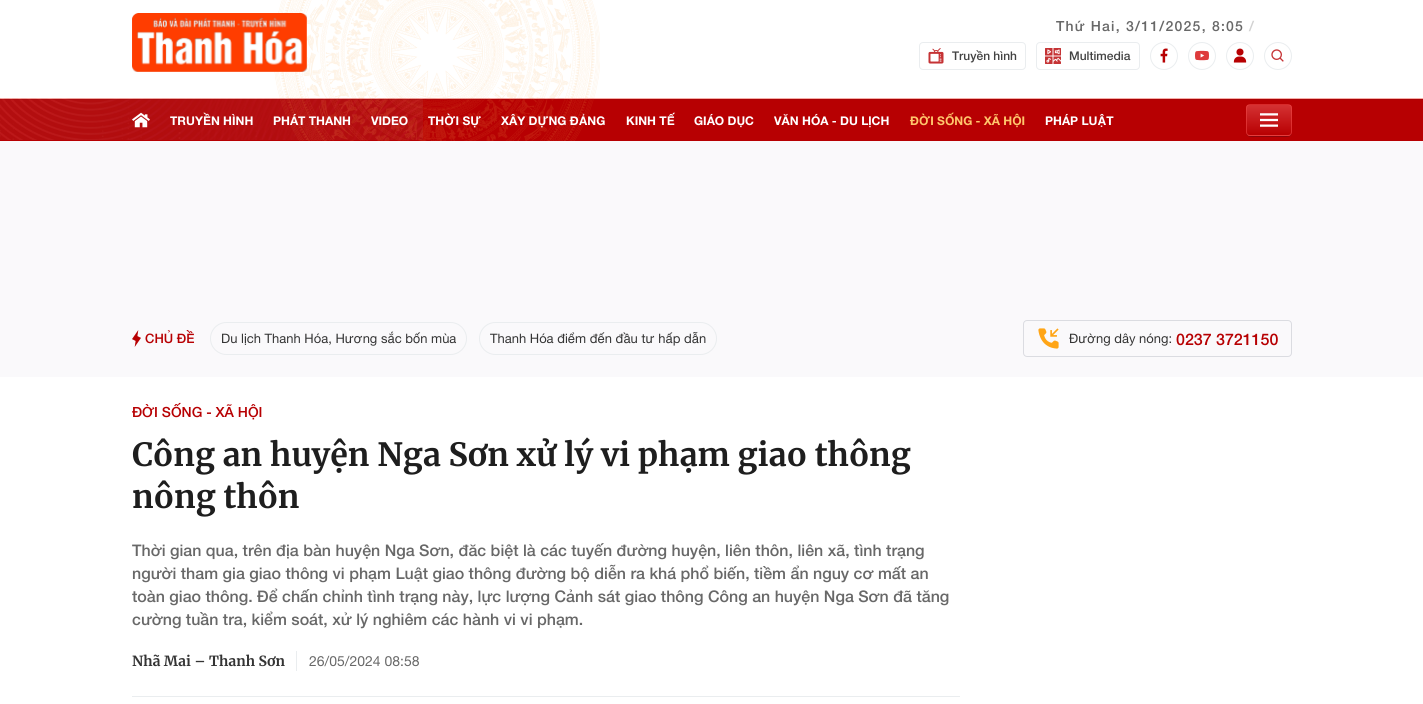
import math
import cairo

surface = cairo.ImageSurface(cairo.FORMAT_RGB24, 1423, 704)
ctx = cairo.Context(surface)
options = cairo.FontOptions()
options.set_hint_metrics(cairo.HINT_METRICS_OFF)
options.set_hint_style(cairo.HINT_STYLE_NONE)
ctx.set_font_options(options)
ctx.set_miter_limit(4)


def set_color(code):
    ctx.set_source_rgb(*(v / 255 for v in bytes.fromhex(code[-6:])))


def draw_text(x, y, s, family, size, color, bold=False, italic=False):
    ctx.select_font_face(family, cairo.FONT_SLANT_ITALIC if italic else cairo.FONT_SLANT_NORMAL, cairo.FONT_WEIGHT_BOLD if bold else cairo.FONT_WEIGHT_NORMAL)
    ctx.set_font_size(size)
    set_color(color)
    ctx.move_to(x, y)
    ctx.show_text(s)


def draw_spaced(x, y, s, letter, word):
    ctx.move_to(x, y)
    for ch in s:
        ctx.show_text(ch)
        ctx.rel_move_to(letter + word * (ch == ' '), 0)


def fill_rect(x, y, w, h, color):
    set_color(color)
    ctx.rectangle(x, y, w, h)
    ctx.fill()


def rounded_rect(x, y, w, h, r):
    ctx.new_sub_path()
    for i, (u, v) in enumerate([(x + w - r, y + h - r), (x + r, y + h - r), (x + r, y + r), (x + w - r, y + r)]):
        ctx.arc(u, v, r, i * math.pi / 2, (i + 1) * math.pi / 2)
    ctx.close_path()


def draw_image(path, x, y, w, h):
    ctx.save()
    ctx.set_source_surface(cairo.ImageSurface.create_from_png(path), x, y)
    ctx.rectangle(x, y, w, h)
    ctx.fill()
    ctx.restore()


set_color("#ffffff")
ctx.paint()
draw_image("assets/img1.png", 0, 0, 1423, 141)
ctx.set_source_rgba(0.549, 0.02, 0.043, 0.3)
ctx.rectangle(0, 99, 1423, 1)
ctx.fill()
ctx.set_source_rgba(0.902, 0.192, 0.137, 0.4)
ctx.rectangle(0, 98, 1423, 1)
ctx.fill()
draw_image("assets/img2.png", 132, 13, 175, 59)
ctx.select_font_face("Helvetica Neue Medium")
ctx.set_font_size(14)
set_color("#686868")
draw_spaced(1056, 31, "Thứ Hai, 3/11/2025, 8:05", 1.25, 0)
set_color("#d2d2d2")
draw_spaced(1249, 31, "/", 1.25, 0)
rounded_rect(919.5, 42.5, 106, 27, 3.5)
set_color("#eaedef")
ctx.set_line_width(1)
ctx.stroke()
draw_image("assets/img3.png", 928, 48, 16, 16)
draw_text(952, 60, "Truyền hình", "Helvetica Neue Medium", 12, "#434343")
rounded_rect(1036.5, 42.5, 103, 27, 3.5)
set_color("#eaedef")
ctx.stroke()
draw_image("assets/img4.png", 1045, 48, 16, 16)
draw_text(1069, 60, "Multimedia", "Helvetica Neue Medium", 12, "#434343")
ctx.new_path()
ctx.arc(1164, 56, 13.5, 0, 2 * math.pi)
set_color("#eaedef")
ctx.stroke()
draw_image("assets/img5.png", 1160, 48, 8, 15)
ctx.arc(1202, 56, 13.5, 0, 2 * math.pi)
ctx.stroke()
draw_image("assets/img6.png", 1195, 50, 14, 11)
ctx.arc(1240, 56, 13.5, 0, 2 * math.pi)
ctx.stroke()
draw_image("assets/img7.png", 1233, 48, 14, 15)
ctx.arc(1278, 56, 13.5, 0, 2 * math.pi)
ctx.stroke()
draw_image("assets/img8.png", 1271, 49, 13, 13)
draw_image("assets/img9.png", 132, 112, 18, 16)
draw_text(170, 125, "TRUYỀN HÌNH", "Helvetica Neue", 12, "#ffffff", bold=True)
draw_text(273, 125, "PHÁT THANH", "Helvetica Neue", 12, "#ffffff", bold=True)
draw_text(371, 125, "VIDEO", "Helvetica Neue", 12, "#ffffff", bold=True)
draw_text(428, 125, "THỜI SỰ", "Helvetica Neue", 12, "#ffffff", bold=True)
draw_text(501, 125, "XÂY DỰNG ĐẢNG", "Helvetica Neue", 12, "#ffffff", bold=True)
draw_text(626, 125, "KINH TẾ", "Helvetica Neue", 12, "#ffffff", bold=True)
draw_text(694, 125, "GIÁO DỤC", "Helvetica Neue", 12, "#ffffff", bold=True)
draw_text(774, 125, "VĂN HÓA - DU LỊCH", "Helvetica Neue", 12, "#ffffff", bold=True)
draw_text(910, 125, "ĐỜI SỐNG - XÃ HỘI", "Helvetica Neue", 12, "#ffc66c", bold=True)
draw_text(1045, 125, "PHÁP LUẬT", "Helvetica Neue", 12, "#ffffff", bold=True)
set_color("#8c050b")
ctx.new_path()
ctx.move_to(1246, 132)
ctx.curve_to(1246, 138, 1252, 137, 1256, 137)
ctx.line_to(1282, 137)
ctx.curve_to(1286, 137, 1292, 138, 1292, 132)
ctx.curve_to(1292, 134, 1290, 136, 1288, 136)
ctx.line_to(1250, 136)
ctx.curve_to(1248, 136, 1246, 134, 1246, 132)
ctx.close_path()
ctx.fill()
ctx.save()
rounded_rect(1246, 104, 46, 32, 4)
ctx.clip()
gradient = cairo.LinearGradient(1269, 105, 1269, 135)
gradient.add_color_stop_rgba(0, 0.835, 0.196, 0.2, 1)
gradient.add_color_stop_rgba(1, 0.718, 0, 0.008, 1)
ctx.set_source(gradient)
ctx.rectangle(1246, 105, 46, 30)
ctx.fill()
gradient = cairo.LinearGradient(1269, 135, 1269, 165)
gradient.add_color_stop_rgba(0, 0.835, 0.196, 0.2, 1)
gradient.add_color_stop_rgba(1, 0.718, 0, 0.008, 1)
ctx.set_source(gradient)
ctx.rectangle(1246, 135, 46, 1)
ctx.fill()
ctx.restore()
rounded_rect(1246.5, 104.5, 45, 31, 3.5)
ctx.set_source_rgba(0.937, 0.271, 0.271, 0.6)
ctx.stroke()
draw_image("assets/img10.png", 1260, 113, 18, 14)
fill_rect(0, 141, 1423, 236, "#faf9fb")
draw_image("assets/img11.png", 132, 330, 9, 17)
draw_text(145, 343, "CHỦ ĐỀ", "Helvetica Neue Medium", 13, "#b70002")
rounded_rect(210.5, 322.5, 256, 32, 16)
set_color("#eaedef")
ctx.stroke()
draw_text(221, 343, "Du lịch Thanh Hóa, Hương sắc bốn mùa", "Helvetica Neue", 13, "#343434")
rounded_rect(479.5, 322.5, 237, 32, 16)
set_color("#eaedef")
ctx.stroke()
draw_text(490, 343, "Thanh Hóa điểm đến đầu tư hấp dẫn", "Helvetica Neue", 13, "#343434")
rounded_rect(1023.5, 320.5, 268, 36, 3.5)
set_color("#dbdce1")
ctx.stroke()
draw_image("assets/img12.png", 1038, 328, 21, 21)
draw_text(1069, 343, "Đường dây nóng:", "Helvetica Neue", 13, "#343434")
draw_text(1176, 345, "0237 3721150", "Helvetica Neue Medium", 16, "#b70002")
draw_text(132, 417, "ĐỜI SỐNG - XÃ HỘI", "Helvetica Neue Medium", 14, "#b70002")
draw_text(132, 466, "Công an huyện Nga Sơn xử lý vi phạm giao thông", "Merriweather", 32, "#1e1e1e", bold=True)
draw_text(132, 508, "nông thôn", "Merriweather", 32, "#1e1e1e", bold=True)
draw_text(132, 556, "Thời gian qua, trên địa bàn huyện Nga Sơn, đăc biệt là các tuyến đường huyện, liên thôn, liên xã, tình trạng", "Helvetica Neue Medium", 16, "#686868")
draw_text(132, 579, "người tham gia giao thông vi phạm Luật giao thông đường bộ diễn ra khá phổ biến, tiềm ẩn nguy cơ mất an", "Helvetica Neue Medium", 16, "#686868")
draw_text(132, 602, "toàn giao thông. Để chấn chỉnh tình trạng này, lực lượng Cảnh sát giao thông Công an huyện Nga Sơn đã tăng", "Helvetica Neue Medium", 16, "#686868")
draw_text(132, 625, "cường tuần tra, kiểm soát, xử lý nghiêm các hành vi vi phạm.", "Helvetica Neue Medium", 16, "#686868")
fill_rect(132, 696, 828, 1, "#eaedef")
draw_text(132, 666, "Nhã Mai – Thanh Sơn", "Merriweather", 14, "#343434", bold=True)
fill_rect(296, 651, 1, 20, "#eaedef")
draw_text(309, 666, "26/05/2024 08:58", "Helvetica Neue", 14, "#686868")
surface.write_to_png("output.png")
